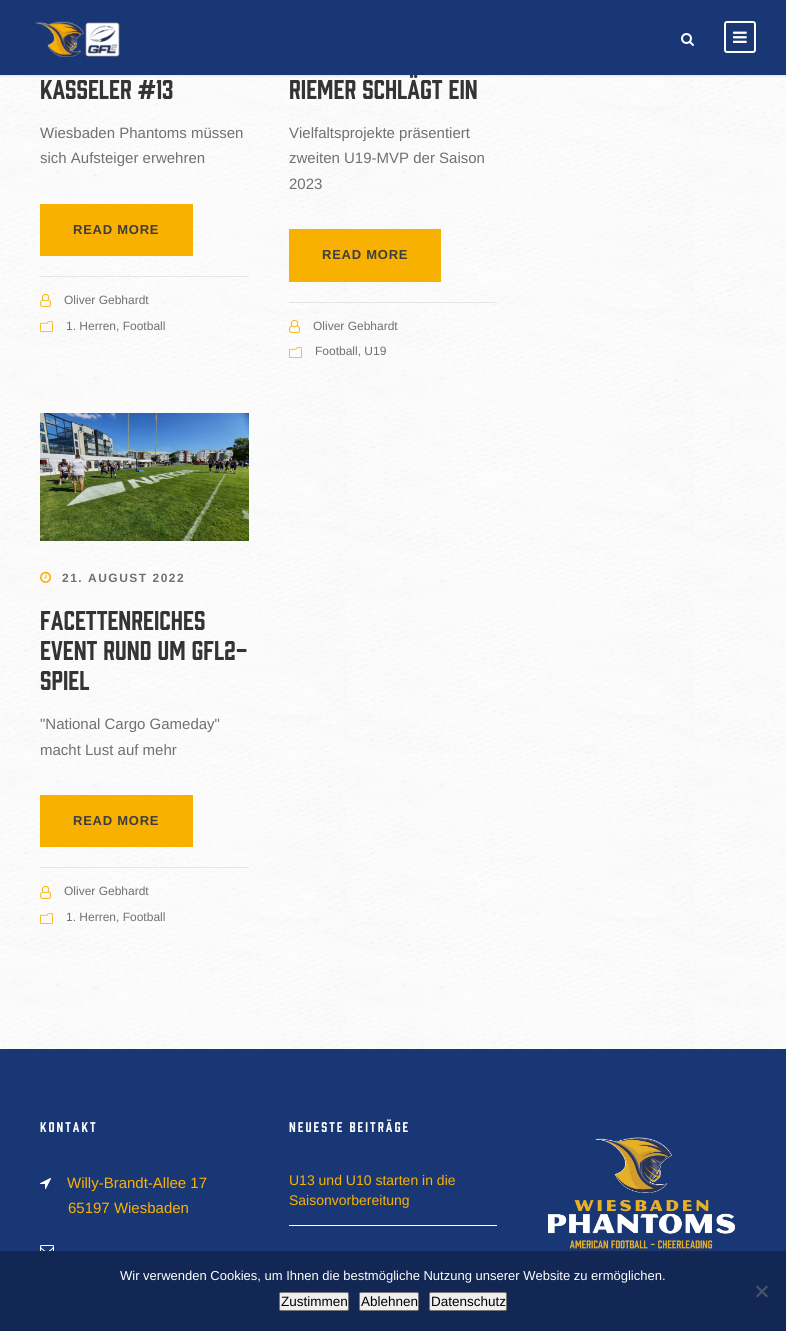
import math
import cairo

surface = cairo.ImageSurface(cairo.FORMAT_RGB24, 786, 1331)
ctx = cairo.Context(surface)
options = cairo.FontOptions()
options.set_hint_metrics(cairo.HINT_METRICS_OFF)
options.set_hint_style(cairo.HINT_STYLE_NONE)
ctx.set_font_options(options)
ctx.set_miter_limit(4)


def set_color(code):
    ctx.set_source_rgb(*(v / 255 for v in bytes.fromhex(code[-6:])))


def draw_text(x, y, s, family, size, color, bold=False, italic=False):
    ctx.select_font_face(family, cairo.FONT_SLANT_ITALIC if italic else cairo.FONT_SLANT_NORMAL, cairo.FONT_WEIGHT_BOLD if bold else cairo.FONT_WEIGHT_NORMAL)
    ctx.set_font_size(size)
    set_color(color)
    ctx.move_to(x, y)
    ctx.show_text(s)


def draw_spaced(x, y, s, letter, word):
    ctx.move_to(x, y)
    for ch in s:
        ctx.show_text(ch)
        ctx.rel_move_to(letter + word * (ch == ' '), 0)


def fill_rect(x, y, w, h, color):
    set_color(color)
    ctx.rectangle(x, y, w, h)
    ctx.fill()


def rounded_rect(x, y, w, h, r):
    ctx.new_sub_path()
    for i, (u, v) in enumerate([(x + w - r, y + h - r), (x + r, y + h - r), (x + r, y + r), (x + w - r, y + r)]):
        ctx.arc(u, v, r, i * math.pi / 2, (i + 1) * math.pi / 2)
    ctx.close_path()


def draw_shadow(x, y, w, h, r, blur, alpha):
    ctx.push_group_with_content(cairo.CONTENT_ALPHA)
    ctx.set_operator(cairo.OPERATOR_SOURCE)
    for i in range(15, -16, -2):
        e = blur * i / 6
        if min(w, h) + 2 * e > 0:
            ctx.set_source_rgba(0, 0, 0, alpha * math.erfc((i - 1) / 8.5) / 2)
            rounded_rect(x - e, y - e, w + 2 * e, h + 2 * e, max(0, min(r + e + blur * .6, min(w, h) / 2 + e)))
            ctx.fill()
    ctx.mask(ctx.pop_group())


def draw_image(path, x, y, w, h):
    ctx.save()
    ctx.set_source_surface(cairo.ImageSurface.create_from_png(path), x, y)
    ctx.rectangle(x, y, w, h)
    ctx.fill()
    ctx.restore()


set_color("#ffffff")
ctx.paint()
draw_image("assets/img4.png", 0, 75, 786, 974)
set_color("#000000")
draw_shadow(0, 1, 786, 75, 0, 1, 0.1)
draw_text(289, 99, "Riemer schlägt ein", "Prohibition", 25, "#343434")
fill_rect(0, 0, 786, 75, "#1a3775")
draw_image("assets/img1.png", 35, 21, 85, 36)
draw_image("assets/img2.png", 681, 33, 13, 13)
rounded_rect(725, 22, 30, 30, 2)
set_color("#ffffff")
ctx.stroke()
draw_image("assets/img3.png", 733, 31, 14, 12)
draw_text(40, 99, "Kasseler #13", "Prohibition", 25, "#343434")
draw_text(40, 138, "Wiesbaden Phantoms müssen", "Liberation Sans", 15, "#707070")
draw_text(40, 163, "sich Aufsteiger erwehren", "Liberation Sans", 15, "#707070")
fill_rect(40, 204, 153, 52, "#f9b101")
ctx.select_font_face("Liberation Sans", cairo.FONT_SLANT_NORMAL, cairo.FONT_WEIGHT_BOLD)
ctx.set_font_size(13)
set_color("#3d3d3d")
draw_spaced(73, 234, "READ MORE", 0.75, 0)
fill_rect(40, 276, 209, 1, "#e6e6e6")
draw_image("assets/img5.png", 40, 293, 12, 14)
draw_text(64, 304, "Oliver Gebhardt", "Liberation Sans", 12, "#707070")
draw_image("assets/img6.png", 40, 321, 13, 11)
draw_text(66, 330, "1. Herren, Football", "Liberation Sans", 12, "#707070")
draw_text(289, 138, "Vielfaltsprojekte präsentiert", "Liberation Sans", 15, "#707070")
draw_text(289, 163, "zweiten U19-MVP der Saison", "Liberation Sans", 15, "#707070")
draw_text(289, 189, "2023", "Liberation Sans", 15, "#707070")
fill_rect(289, 229, 152, 53, "#f9b101")
ctx.select_font_face("Liberation Sans", cairo.FONT_SLANT_NORMAL, cairo.FONT_WEIGHT_BOLD)
ctx.set_font_size(13)
set_color("#3d3d3d")
draw_spaced(322, 259, "READ MORE", 0.75, 0)
fill_rect(289, 302, 208, 1, "#e6e6e6")
draw_image("assets/img7.png", 289, 319, 12, 14)
draw_text(313, 330, "Oliver Gebhardt", "Liberation Sans", 12, "#707070")
draw_image("assets/img8.png", 289, 347, 13, 11)
draw_text(315, 355, "Football, U19", "Liberation Sans", 12, "#707070")
draw_image("assets/img9.png", 40, 413, 209, 128)
draw_image("assets/img10.png", 40, 571, 12, 12)
ctx.select_font_face("Liberation Sans", cairo.FONT_SLANT_NORMAL, cairo.FONT_WEIGHT_BOLD)
draw_spaced(62, 582, "21. AUGUST 2022", 1.5, 0)
draw_text(40, 630, "Facettenreiches", "Prohibition", 25, "#343434")
draw_text(40, 660, "Event rund um GFL2-", "Prohibition", 25, "#343434")
draw_text(40, 690, "Spiel", "Prohibition", 25, "#343434")
draw_text(40, 729, "\"National Cargo Gameday\"", "Liberation Sans", 15, "#707070")
draw_text(40, 755, "macht Lust auf mehr", "Liberation Sans", 15, "#707070")
fill_rect(40, 795, 153, 52, "#f9b101")
ctx.select_font_face("Liberation Sans", cairo.FONT_SLANT_NORMAL, cairo.FONT_WEIGHT_BOLD)
ctx.set_font_size(13)
set_color("#3d3d3d")
draw_spaced(73, 825, "READ MORE", 0.75, 0)
fill_rect(40, 867, 209, 1, "#e6e6e6")
draw_image("assets/img11.png", 40, 885, 12, 14)
draw_text(64, 895, "Oliver Gebhardt", "Liberation Sans", 12, "#707070")
draw_image("assets/img12.png", 40, 913, 13, 11)
draw_text(66, 921, "1. Herren, Football", "Liberation Sans", 12, "#707070")
fill_rect(0, 1049, 786, 202, "#1a3775")
ctx.select_font_face("Prohibition")
ctx.set_font_size(13)
set_color("#ffffff")
draw_spaced(40, 1132, "KONTAKT", 2, 0)
draw_image("assets/img13.png", 40, 1178, 11, 11)
draw_text(67, 1188, "Willy-Brandt-Allee 17", "Liberation Sans", 15, "#f9b101")
draw_text(68, 1213, "65197 Wiesbaden", "Liberation Sans", 15, "#f9b101")
draw_image("assets/img14.png", 40, 1245, 14, 6)
ctx.select_font_face("Prohibition")
ctx.set_font_size(13)
set_color("#ffffff")
draw_spaced(289, 1132, "NEUESTE BEITRÄGE", 2, 0)
fill_rect(289, 1225, 208, 1, "#ffffff")
draw_text(289, 1185, "U13 und U10 starten in die", "Liberation Sans", 14, "#f9b101")
draw_text(289, 1205, "Saisonvorbereitung", "Liberation Sans", 14, "#f9b101")
draw_image("assets/img15.png", 548, 1137, 187, 112)
fill_rect(0, 1251, 786, 80, "#122754")
draw_text(120, 1280, "Wir verwenden Cookies, um Ihnen die bestmögliche Nutzung unserer Website zu ermöglichen.", "Liberation Sans", 13, "#ffffff")
set_color("#49546a")
ctx.new_path()
ctx.move_to(766.5, 1285.5)
ctx.line_to(768, 1287)
ctx.line_to(757.5, 1297.5)
ctx.line_to(756, 1296)
ctx.close_path()
ctx.fill()
ctx.new_path()
ctx.move_to(756, 1287)
ctx.line_to(757.5, 1285.5)
ctx.line_to(768, 1296)
ctx.line_to(766.5, 1297.5)
ctx.close_path()
ctx.fill()
set_color("#efefef")
rounded_rect(279.5, 1292.5, 69, 18, 1.5)
ctx.fill_preserve()
set_color("#767676")
ctx.set_line_width(1)
ctx.stroke()
draw_text(281, 1306, "Zustimmen", "Liberation Sans", 13.5, "#000000")
set_color("#efefef")
rounded_rect(359.5, 1292.5, 59, 18, 1.5)
ctx.fill_preserve()
set_color("#767676")
ctx.stroke()
draw_text(361, 1306, "Ablehnen", "Liberation Sans", 13.5, "#000000")
set_color("#efefef")
rounded_rect(429.5, 1292.5, 77, 18, 1.5)
ctx.fill_preserve()
set_color("#767676")
ctx.stroke()
draw_text(431, 1306, "Datenschutz", "Liberation Sans", 13.5, "#000000")
surface.write_to_png("output.png")
